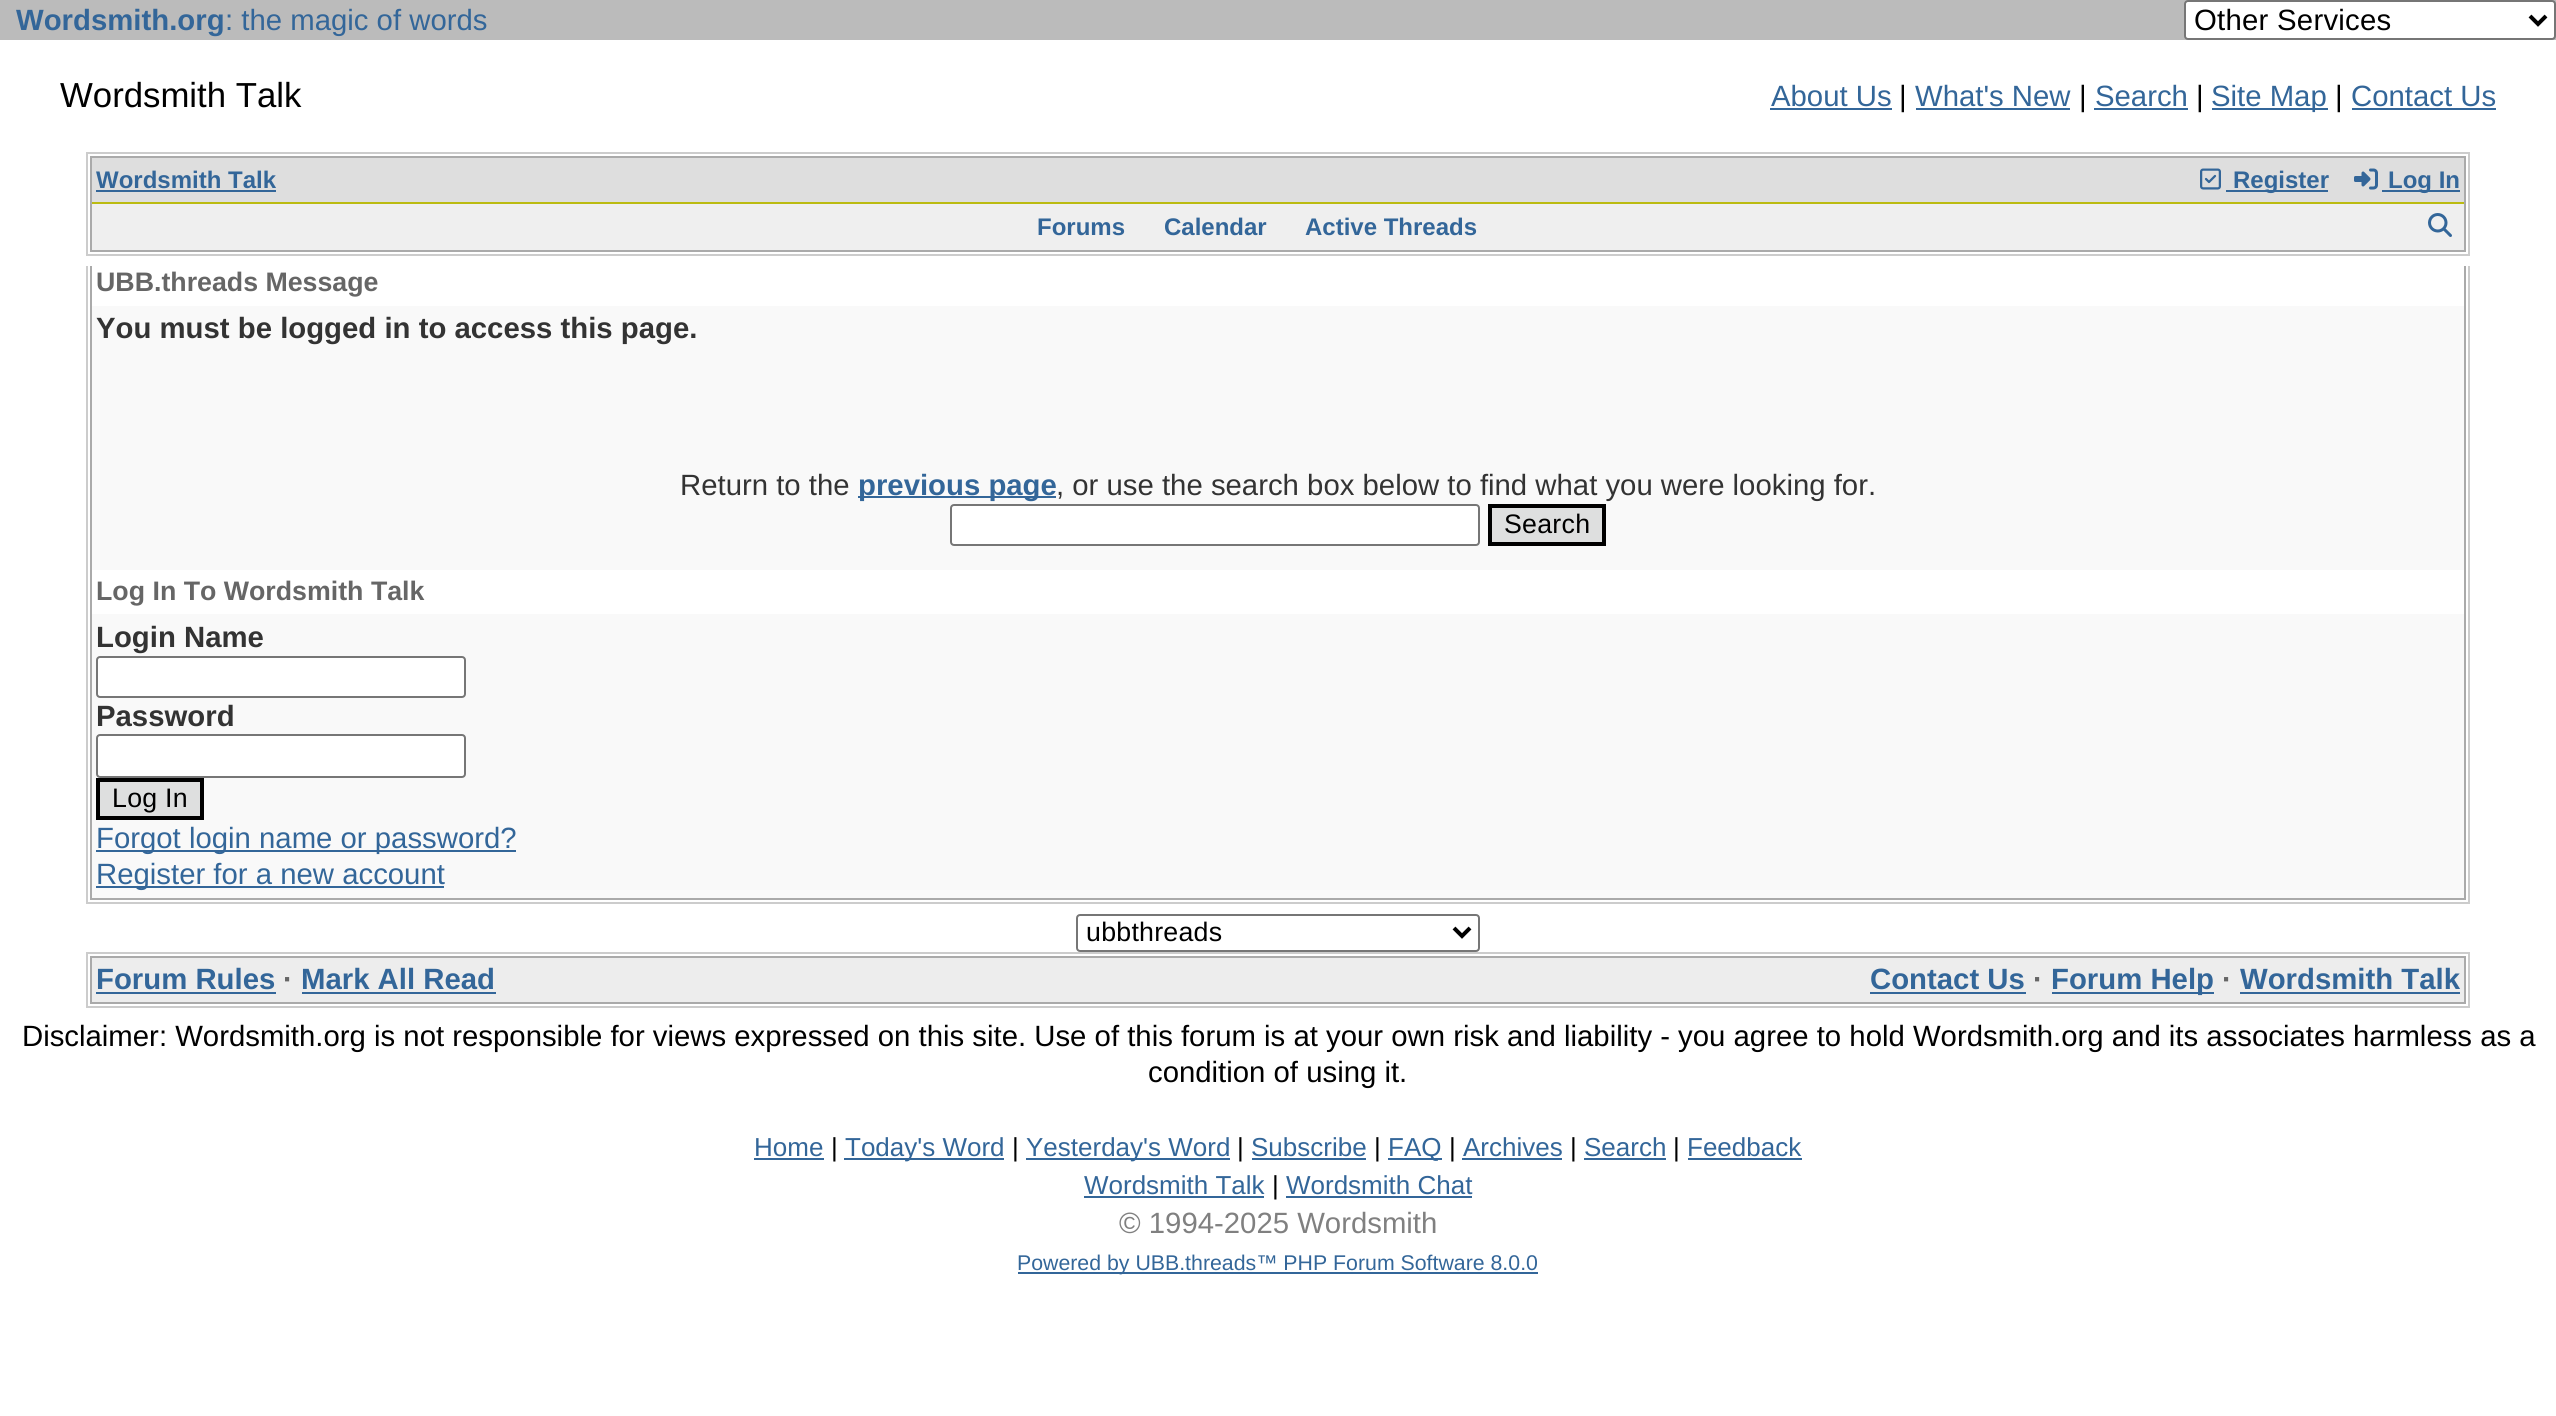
import math
import cairo

surface = cairo.ImageSurface(cairo.FORMAT_RGB24, 2556, 1416)
ctx = cairo.Context(surface)
options = cairo.FontOptions()
options.set_hint_metrics(cairo.HINT_METRICS_OFF)
options.set_hint_style(cairo.HINT_STYLE_NONE)
ctx.set_font_options(options)
ctx.set_miter_limit(4)


def set_color(code):
    ctx.set_source_rgb(*(v / 255 for v in bytes.fromhex(code[-6:])))


def draw_text(x, y, s, family, size, color, bold=False, italic=False):
    ctx.select_font_face(family, cairo.FONT_SLANT_ITALIC if italic else cairo.FONT_SLANT_NORMAL, cairo.FONT_WEIGHT_BOLD if bold else cairo.FONT_WEIGHT_NORMAL)
    ctx.set_font_size(size)
    set_color(color)
    ctx.move_to(x, y)
    ctx.show_text(s)


def draw_spaced(x, y, s, letter, word):
    ctx.move_to(x, y)
    for ch in s:
        ctx.show_text(ch)
        ctx.rel_move_to(letter + word * (ch == ' '), 0)


def fill_rect(x, y, w, h, color):
    set_color(color)
    ctx.rectangle(x, y, w, h)
    ctx.fill()


def rounded_rect(x, y, w, h, r):
    ctx.new_sub_path()
    for i, (u, v) in enumerate([(x + w - r, y + h - r), (x + r, y + h - r), (x + r, y + r), (x + w - r, y + r)]):
        ctx.arc(u, v, r, i * math.pi / 2, (i + 1) * math.pi / 2)
    ctx.close_path()


def draw_image(path, x, y, w, h):
    ctx.save()
    ctx.set_source_surface(cairo.ImageSurface.create_from_png(path), x, y)
    ctx.rectangle(x, y, w, h)
    ctx.fill()
    ctx.restore()


set_color("#ffffff")
ctx.paint()
fill_rect(0, 0, 2556, 40, "#bbbbbb")
draw_text(16, 30, "Wordsmith.org", "Liberation Sans", 29.33, "#336699", bold=True)
draw_text(225, 30, ": the magic of words", "Liberation Sans", 29.33, "#336699")
set_color("#ffffff")
rounded_rect(2185, 1, 370, 38, 3)
ctx.fill_preserve()
set_color("#767676")
ctx.stroke()
ctx.new_path()
ctx.move_to(2530, 16)
ctx.line_to(2538, 24)
ctx.line_to(2546, 16)
set_color("#000000")
ctx.set_line_width(4)
ctx.stroke()
draw_spaced(2194, 30, "Other Services", 0.25, 0)
draw_text(60, 107, "Wordsmith Talk", "Liberation Sans", 34.75, "#000000")
draw_text(1771, 106, "About Us", "Liberation Sans", 29.33, "#336699")
fill_rect(1770, 108, 122, 2, "#336699")
draw_text(1899, 106, "|", "Liberation Sans", 29.33, "#000000")
draw_text(1915, 106, "What's New", "Liberation Sans", 29.33, "#336699")
fill_rect(1916, 108, 154, 2, "#336699")
draw_text(2079, 106, "|", "Liberation Sans", 29.33, "#000000")
draw_text(2095, 106, "Search", "Liberation Sans", 29.33, "#336699")
fill_rect(2094, 108, 94, 2, "#336699")
draw_text(2196, 106, "|", "Liberation Sans", 29.33, "#000000")
fill_rect(2212, 108, 116, 2, "#336699")
draw_text(2211, 106, "Site Map", "Liberation Sans", 29.33, "#336699")
draw_text(2335, 106, "|", "Liberation Sans", 29.33, "#000000")
draw_text(2351, 106, "Contact Us", "Liberation Sans", 29.33, "#336699")
fill_rect(2352, 108, 144, 2, "#336699")
ctx.rectangle(87, 153, 2382, 102)
set_color("#cccccc")
ctx.set_line_width(2)
ctx.stroke()
ctx.rectangle(91, 157, 2374, 94)
set_color("#aaaaaa")
ctx.stroke()
fill_rect(92, 158, 2372, 44, "#dedede")
draw_text(96, 188, "Wordsmith Talk", "Liberation Sans", 24, "#336699", bold=True)
fill_rect(96, 190, 180, 2, "#336699")
draw_image("assets/img1.png", 2200, 168, 21, 22)
fill_rect(2226, 190, 102, 2, "#336699")
draw_text(2233, 188, "Register", "Liberation Sans", 24, "#336699", bold=True)
draw_image("assets/img2.png", 2354, 168, 24, 22)
fill_rect(2382, 190, 78, 2, "#336699")
draw_text(2388, 188, "Log In", "Liberation Sans", 24, "#336699", bold=True)
fill_rect(92, 204, 2372, 46, "#efefef")
fill_rect(92, 202, 2372, 2, "#bbbb11")
draw_text(1037, 235, "Forums", "Liberation Sans", 24, "#336699", bold=True)
draw_text(1164, 235, "Calendar", "Liberation Sans", 24, "#336699", bold=True)
draw_text(1305, 235, "Active Threads", "Liberation Sans", 24, "#336699", bold=True)
draw_image("assets/img3.png", 2428, 213, 24, 24)
ctx.save()
ctx.rectangle(86, 266, 2384, 648)
ctx.clip()
ctx.rectangle(87, 257, 2382, 646)
set_color("#cccccc")
ctx.stroke()
ctx.restore()
ctx.save()
ctx.rectangle(90, 266, 2376, 634)
ctx.clip()
ctx.rectangle(91, 261, 2374, 638)
set_color("#aaaaaa")
ctx.stroke()
ctx.restore()
draw_text(96, 291, "UBB.threads Message", "Liberation Sans", 26.75, "#666666", bold=True)
fill_rect(92, 306, 2372, 264, "#f9f9f9")
draw_text(96, 338, "You must be logged in to access this page.", "Liberation Sans", 29.33, "#333333", bold=True)
draw_text(680, 495, "Return to the", "Liberation Sans", 29.33, "#333333")
fill_rect(858, 496, 198, 2, "#336699")
draw_text(858, 495, "previous page", "Liberation Sans", 29.33, "#336699", bold=True)
draw_text(1056, 495, ", or use the search box below to find what you were looking for.", "Liberation Sans", 29.33, "#333333")
set_color("#ffffff")
rounded_rect(951, 505, 528, 40, 3)
ctx.fill_preserve()
set_color("#767676")
ctx.stroke()
set_color("#dedfdf")
ctx.rectangle(1490, 506, 114, 38)
ctx.fill_preserve()
set_color("#000000")
ctx.set_line_width(4)
ctx.stroke()
ctx.set_font_size(26.75)
draw_spaced(1504, 533, "Search", 0.25, 0)
draw_text(96, 600, "Log In To Wordsmith Talk", "Liberation Sans", 26.75, "#666666", bold=True)
fill_rect(92, 614, 2372, 284, "#f9f9f9")
draw_text(96, 647, "Login Name", "Liberation Sans", 29.33, "#333333", bold=True)
set_color("#ffffff")
rounded_rect(97, 657, 368, 40, 3)
ctx.fill_preserve()
set_color("#767676")
ctx.set_line_width(2)
ctx.stroke()
draw_text(96, 726, "Password", "Liberation Sans", 29.33, "#333333", bold=True)
set_color("#ffffff")
rounded_rect(97, 735, 368, 42, 3)
ctx.fill_preserve()
set_color("#767676")
ctx.stroke()
set_color("#dedfdf")
ctx.rectangle(98, 780, 104, 38)
ctx.fill_preserve()
set_color("#000000")
ctx.set_line_width(4)
ctx.stroke()
ctx.select_font_face("Liberation Sans")
ctx.set_font_size(26.75)
draw_spaced(112, 807, "Log In", 0.25, 0)
fill_rect(96, 850, 420, 2, "#336699")
draw_text(96, 848, "Forgot login name or password?", "Liberation Sans", 29.33, "#336699")
fill_rect(96, 886, 348, 2, "#336699")
draw_text(96, 884, "Register for a new account", "Liberation Sans", 29.33, "#336699")
rounded_rect(1077, 915, 402, 36, 3)
set_color("#767676")
ctx.set_line_width(2)
ctx.stroke()
ctx.new_path()
ctx.move_to(1454, 928)
ctx.line_to(1462, 936)
ctx.line_to(1470, 928)
set_color("#000000")
ctx.set_line_width(4)
ctx.stroke()
ctx.set_font_size(26.75)
draw_spaced(1086, 941, "ubbthreads", 0.25, 0)
ctx.rectangle(87, 953, 2382, 54)
set_color("#cccccc")
ctx.set_line_width(2)
ctx.stroke()
ctx.rectangle(91, 957, 2374, 46)
set_color("#aaaaaa")
ctx.stroke()
fill_rect(92, 958, 2372, 44, "#ededed")
draw_text(96, 989, "Forum Rules", "Liberation Sans", 29.33, "#336699", bold=True)
fill_rect(96, 992, 180, 2, "#336699")
draw_text(283, 989, "·", "Liberation Sans", 29.33, "#666666", bold=True)
draw_text(301, 989, "Mark All Read", "Liberation Sans", 29.33, "#336699", bold=True)
fill_rect(302, 992, 194, 2, "#336699")
draw_text(1870, 989, "Contact Us", "Liberation Sans", 29.33, "#336699", bold=True)
fill_rect(1870, 992, 156, 2, "#336699")
draw_text(2033, 989, "·", "Liberation Sans", 29.33, "#666666", bold=True)
fill_rect(2052, 992, 162, 2, "#336699")
draw_text(2051, 989, "Forum Help", "Liberation Sans", 29.33, "#336699", bold=True)
draw_text(2222, 989, "·", "Liberation Sans", 29.33, "#666666", bold=True)
draw_text(2240, 989, "Wordsmith Talk", "Liberation Sans", 29.33, "#336699", bold=True)
fill_rect(2240, 992, 220, 2, "#336699")
draw_text(22, 1046, "Disclaimer: Wordsmith.org is not responsible for views expressed on this site. Use of this forum is at your own risk and liability - you agree to hold Wordsmith.org and its associates harmless as a", "Liberation Sans", 29.33, "#000000")
draw_text(1148, 1082, "condition of using it.", "Liberation Sans", 29.33, "#000000")
draw_text(754, 1156, "Home", "Liberation Sans", 26, "#336699")
fill_rect(754, 1158, 70, 2, "#336699")
draw_text(831, 1156, "|", "Liberation Sans", 26, "#000000")
fill_rect(844, 1158, 160, 2, "#336699")
draw_text(845, 1156, "Today's Word", "Liberation Sans", 26, "#336699")
draw_text(1012, 1156, "|", "Liberation Sans", 26, "#000000")
fill_rect(1026, 1158, 204, 2, "#336699")
draw_text(1026, 1156, "Yesterday's Word", "Liberation Sans", 26, "#336699")
draw_text(1237, 1156, "|", "Liberation Sans", 26, "#000000")
draw_text(1251, 1156, "Subscribe", "Liberation Sans", 26, "#336699")
fill_rect(1252, 1158, 114, 2, "#336699")
draw_text(1374, 1156, "|", "Liberation Sans", 26, "#000000")
fill_rect(1388, 1158, 54, 2, "#336699")
draw_text(1388, 1156, "FAQ", "Liberation Sans", 26, "#336699")
draw_text(1449, 1156, "|", "Liberation Sans", 26, "#000000")
draw_text(1463, 1156, "Archives", "Liberation Sans", 26, "#336699")
fill_rect(1462, 1158, 100, 2, "#336699")
draw_text(1570, 1156, "|", "Liberation Sans", 26, "#000000")
draw_text(1584, 1156, "Search", "Liberation Sans", 26, "#336699")
fill_rect(1584, 1158, 82, 2, "#336699")
draw_text(1673, 1156, "|", "Liberation Sans", 26, "#000000")
draw_text(1687, 1156, "Feedback", "Liberation Sans", 26, "#336699")
fill_rect(1688, 1158, 114, 2, "#336699")
draw_text(1084, 1194, "Wordsmith Talk", "Liberation Sans", 26, "#336699")
fill_rect(1084, 1196, 180, 2, "#336699")
draw_text(1272, 1194, "|", "Liberation Sans", 26, "#000000")
draw_text(1286, 1194, "Wordsmith Chat", "Liberation Sans", 26, "#336699")
fill_rect(1286, 1196, 186, 2, "#336699")
draw_text(1119, 1233, "© 1994-2025 Wordsmith", "Liberation Sans", 29.33, "#808080")
fill_rect(1018, 1272, 520, 2, "#336699")
draw_text(1017, 1270, "Powered by UBB.threads™ PHP Forum Software 8.0.0", "Liberation Sans", 21.3, "#336699")
surface.write_to_png("output.png")
